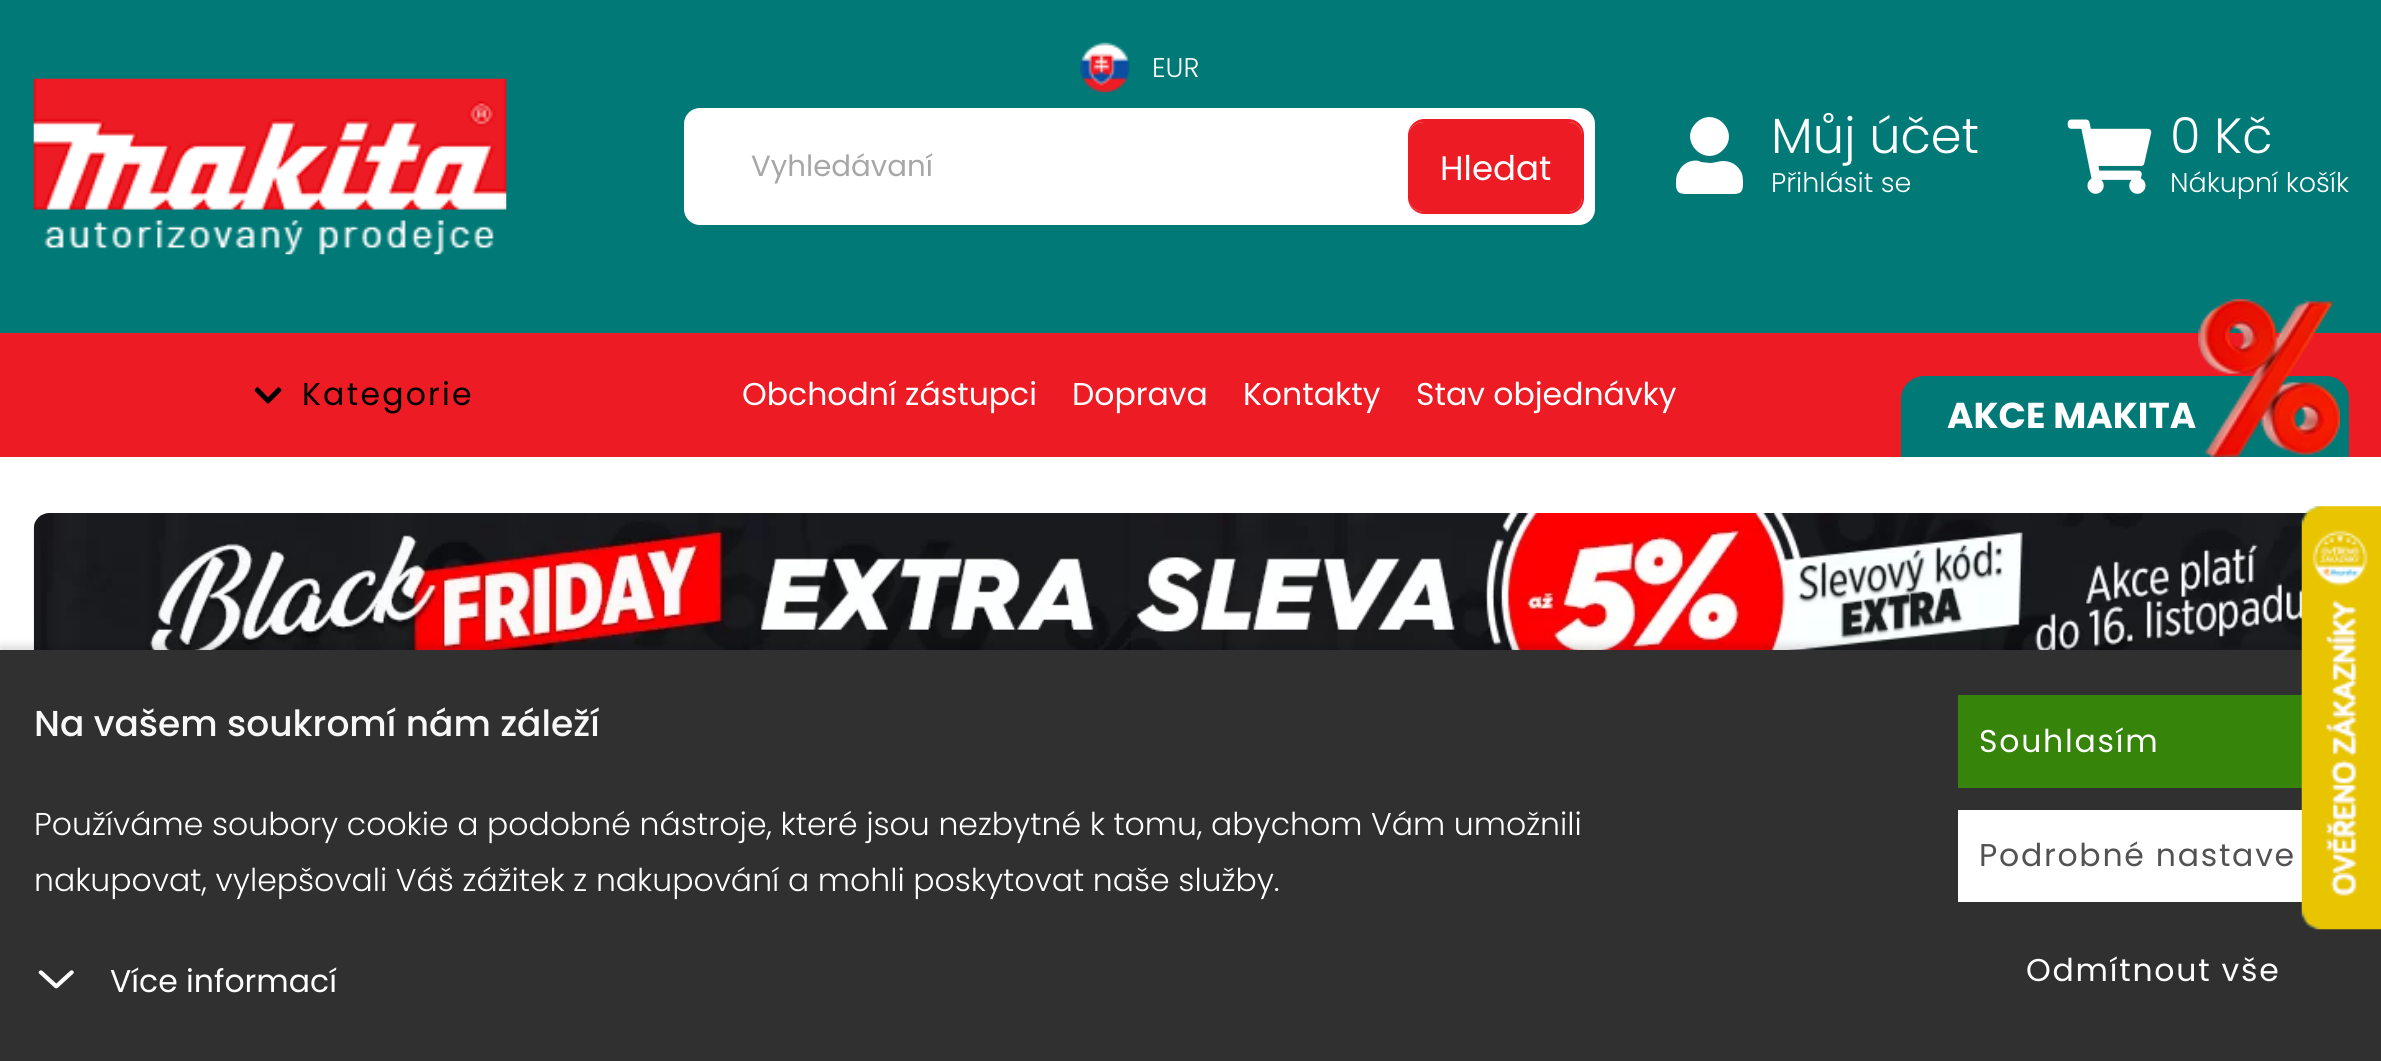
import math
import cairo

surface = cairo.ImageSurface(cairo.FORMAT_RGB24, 2381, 1061)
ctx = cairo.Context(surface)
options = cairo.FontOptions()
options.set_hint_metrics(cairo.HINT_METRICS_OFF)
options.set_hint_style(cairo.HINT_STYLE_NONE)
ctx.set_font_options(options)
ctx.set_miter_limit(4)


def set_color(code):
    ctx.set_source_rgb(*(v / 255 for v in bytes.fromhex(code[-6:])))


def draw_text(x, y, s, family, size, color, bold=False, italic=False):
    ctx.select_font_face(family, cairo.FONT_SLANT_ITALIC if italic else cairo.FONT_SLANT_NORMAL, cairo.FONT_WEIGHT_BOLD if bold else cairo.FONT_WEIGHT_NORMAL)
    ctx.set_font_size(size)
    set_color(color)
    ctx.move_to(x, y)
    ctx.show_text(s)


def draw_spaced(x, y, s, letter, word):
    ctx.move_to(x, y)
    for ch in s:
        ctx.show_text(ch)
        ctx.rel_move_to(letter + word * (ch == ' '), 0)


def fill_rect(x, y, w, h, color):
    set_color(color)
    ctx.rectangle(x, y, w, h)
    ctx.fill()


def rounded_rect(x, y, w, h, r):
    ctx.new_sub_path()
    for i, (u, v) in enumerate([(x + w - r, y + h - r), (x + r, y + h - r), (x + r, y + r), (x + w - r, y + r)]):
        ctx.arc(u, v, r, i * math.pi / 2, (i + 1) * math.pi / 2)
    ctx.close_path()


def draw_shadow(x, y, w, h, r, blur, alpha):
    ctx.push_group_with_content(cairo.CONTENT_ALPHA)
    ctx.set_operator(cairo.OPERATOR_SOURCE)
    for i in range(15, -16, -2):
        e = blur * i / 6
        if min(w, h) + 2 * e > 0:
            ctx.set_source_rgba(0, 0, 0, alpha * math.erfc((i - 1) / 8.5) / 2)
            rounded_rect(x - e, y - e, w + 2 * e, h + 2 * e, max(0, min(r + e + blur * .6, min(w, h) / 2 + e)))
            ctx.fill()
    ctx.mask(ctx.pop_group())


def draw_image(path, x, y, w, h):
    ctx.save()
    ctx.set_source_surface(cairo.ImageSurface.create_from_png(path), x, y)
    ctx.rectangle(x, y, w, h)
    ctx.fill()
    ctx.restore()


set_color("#ffffff")
ctx.paint()
fill_rect(0, 333, 2381, 124, "#ec1b24")
fill_rect(0, 0, 2381, 333, "#007977")
draw_image("assets/img1.png", 33, 78, 474, 177)
draw_image("assets/img2.png", 1080, 42, 50, 51)
draw_text(1152, 77, "EUR", "Poppins Light", 27, "#ffffff")
rounded_rect(684, 108, 911, 117, 16)
ctx.fill()
draw_text(751, 176, "Vyhledávaní", "Poppins", 29.25, "#a7a7a7")
set_color("#ec1b24")
ctx.new_path()
ctx.move_to(1424, 122)
ctx.line_to(1568, 122)
ctx.curve_to(1576, 122, 1582, 128, 1582, 135)
ctx.line_to(1582, 198)
ctx.curve_to(1582, 205, 1576, 212, 1568, 212)
ctx.line_to(1424, 212)
ctx.curve_to(1416, 212, 1408, 205, 1408, 198)
ctx.line_to(1408, 135)
ctx.curve_to(1408, 128, 1416, 122, 1424, 122)
ctx.close_path()
ctx.fill()
ctx.set_fill_rule(cairo.FILL_RULE_EVEN_ODD)
ctx.new_path()
ctx.move_to(1424, 119)
ctx.line_to(1568, 119)
ctx.curve_to(1577, 119, 1584, 126, 1584, 135)
ctx.line_to(1584, 198)
ctx.curve_to(1584, 207, 1577, 214, 1568, 214)
ctx.line_to(1424, 214)
ctx.curve_to(1416, 214, 1408, 207, 1408, 198)
ctx.line_to(1408, 135)
ctx.curve_to(1408, 126, 1416, 119, 1424, 119)
ctx.close_path()
ctx.move_to(1424, 122)
ctx.line_to(1568, 122)
ctx.curve_to(1576, 122, 1582, 128, 1582, 135)
ctx.line_to(1582, 198)
ctx.curve_to(1582, 205, 1576, 212, 1568, 212)
ctx.line_to(1424, 212)
ctx.curve_to(1416, 212, 1408, 205, 1408, 198)
ctx.line_to(1408, 135)
ctx.curve_to(1408, 128, 1416, 122, 1424, 122)
ctx.close_path()
ctx.fill()
draw_text(1440, 180, "Hledat", "Poppins", 34, "#ffffff")
ctx.set_fill_rule(cairo.FILL_RULE_WINDING)
ctx.new_path()
ctx.move_to(1723, 150)
ctx.curve_to(1705, 168, 1678, 141, 1696, 123)
ctx.curve_to(1714, 105, 1741, 132, 1723, 150)
ctx.close_path()
ctx.move_to(1723, 161)
ctx.curve_to(1730, 161, 1736, 164, 1740, 170)
ctx.curve_to(1743, 174, 1743, 179, 1743, 184)
ctx.curve_to(1743, 195, 1738, 194, 1727, 194)
ctx.line_to(1692, 194)
ctx.curve_to(1682, 194, 1676, 195, 1676, 184)
ctx.curve_to(1676, 179, 1676, 175, 1679, 171)
ctx.curve_to(1682, 164, 1691, 159, 1699, 161)
ctx.line_to(1701, 162)
ctx.line_to(1710, 163)
ctx.curve_to(1714, 163, 1719, 161, 1723, 161)
ctx.close_path()
ctx.fill()
draw_text(1771, 153, "Můj účet", "Poppins Light", 49.5, "#ffffff")
draw_text(1771, 192, "Přihlásit se", "Poppins Light", 27, "#ffffff")
draw_image("assets/img3.png", 2067, 119, 85, 75)
draw_text(2170, 153, "0 Kč", "Poppins Light", 49.5, "#ffffff")
draw_text(2170, 192, "Nákupní košík", "Poppins Light", 27, "#ffffff")
draw_image("assets/img4.png", 254, 387, 28, 17)
ctx.select_font_face("Poppins")
ctx.set_font_size(31.5)
set_color("#000000")
draw_spaced(302, 405, "Kategorie", 2.25, 0)
draw_text(742, 405, "Obchodní zástupci", "Poppins", 31.5, "#ffffff")
draw_text(1072, 405, "Doprava", "Poppins", 31.5, "#ffffff")
draw_text(1243, 405, "Kontakty", "Poppins", 31.5, "#ffffff")
draw_text(1416, 405, "Stav objednávky", "Poppins", 31.5, "#ffffff")
set_color("#007977")
ctx.new_path()
ctx.move_to(1924, 376)
ctx.line_to(2326, 376)
ctx.curve_to(2338.5, 376, 2349, 386.5, 2349, 399)
ctx.line_to(2349, 457)
ctx.line_to(1901, 457)
ctx.line_to(1901, 399)
ctx.curve_to(1901, 386.5, 1911.5, 376, 1924, 376)
ctx.close_path()
ctx.fill()
draw_text(1947, 428, "AKCE MAKITA", "Poppins", 36, "#ffffff", bold=True)
draw_image("assets/img5.png", 2198, 299, 142, 158)
draw_image("assets/img6.png", 33, 513, 2277, 137)
set_color("#000000")
draw_shadow(0, 646, 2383, 412, 0, 4.5, 0.15)
fill_rect(0, 650, 2381, 411, "#303030")
fill_rect(1958, 695, 344, 93, "#36840a")
fill_rect(1958, 810, 344, 92, "#ffffff")
draw_image("assets/img7.png", 2301, 506, 80, 424)
draw_text(34, 736, "Na vašem soukromí nám záleží", "Poppins Medium", 36, "#f8f8f8")
draw_text(34, 835, "Používáme soubory cookie a podobné nástroje, které jsou nezbytné k tomu, abychom Vám umožnili", "Poppins Light", 31.5, "#ffffff")
draw_text(34, 891, "nakupovat, vylepšovali Váš zážitek z nakupování a mohli poskytovat naše služby.", "Poppins Light", 31.5, "#ffffff")
draw_image("assets/img8.png", 38, 970, 36, 19)
draw_text(110, 992, "Více informací", "Poppins", 31.5, "#ffffff")
draw_spaced(1979, 752, "Souhlasím", 1.75, 0)
set_color("#535252")
draw_spaced(1979, 866, "Podrobné nastave", 1.75, 0)
set_color("#ffffff")
draw_spaced(2026, 981, "Odmítnout vše", 1.75, 0)
surface.write_to_png("output.png")
